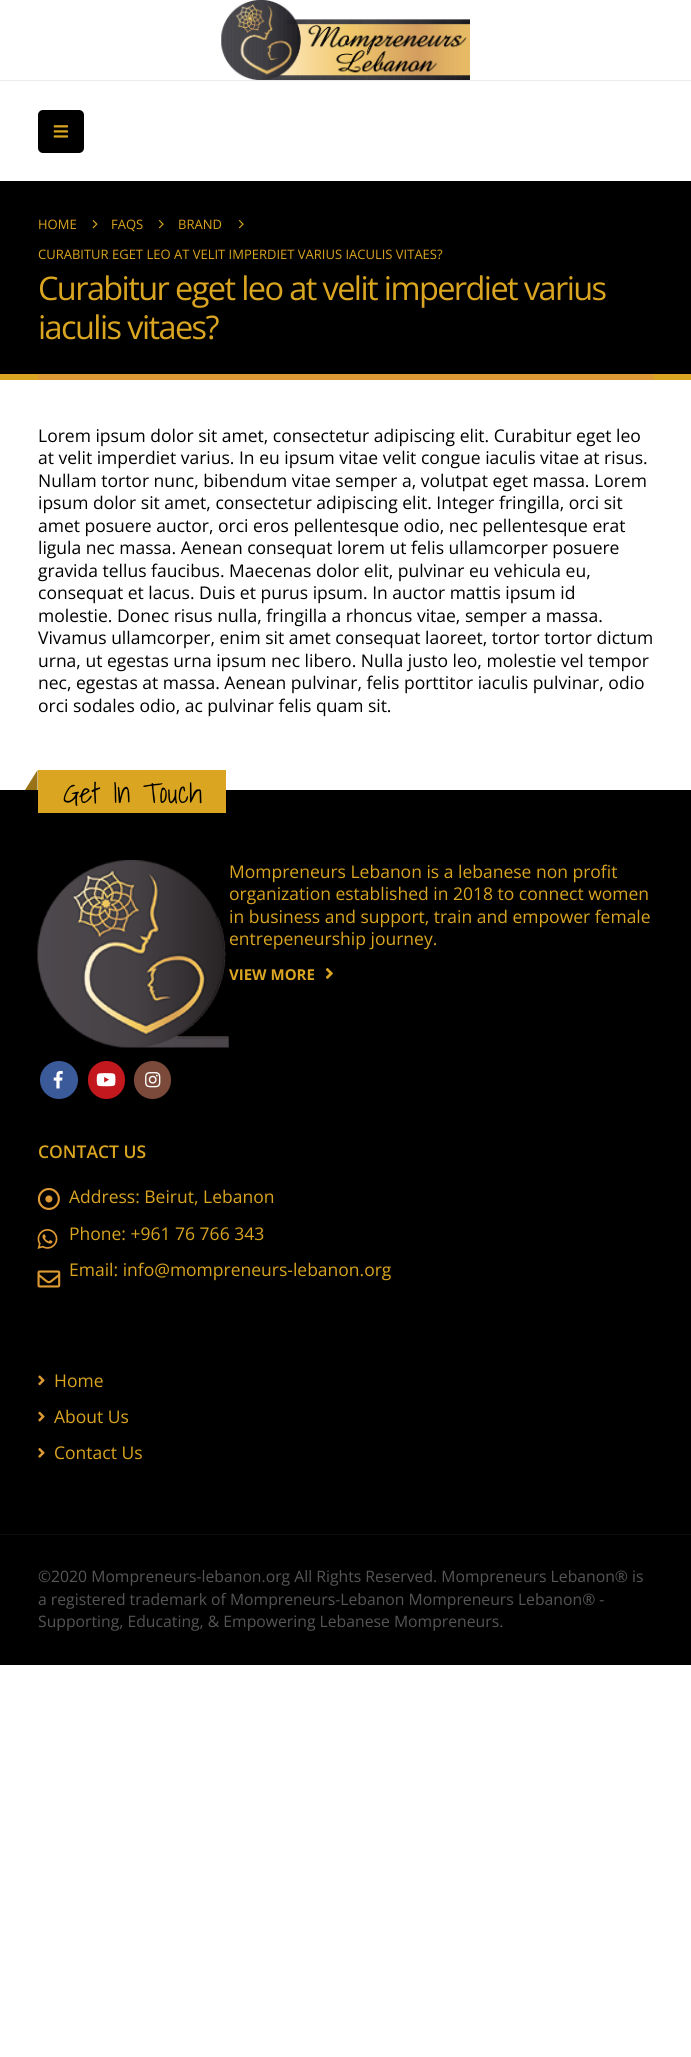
import math
import cairo

surface = cairo.ImageSurface(cairo.FORMAT_RGB24, 691, 2057)
ctx = cairo.Context(surface)
options = cairo.FontOptions()
options.set_hint_metrics(cairo.HINT_METRICS_OFF)
options.set_hint_style(cairo.HINT_STYLE_NONE)
ctx.set_font_options(options)
ctx.set_miter_limit(4)


def set_color(code):
    ctx.set_source_rgb(*(v / 255 for v in bytes.fromhex(code[-6:])))


def draw_text(x, y, s, family, size, color, bold=False, italic=False):
    ctx.select_font_face(family, cairo.FONT_SLANT_ITALIC if italic else cairo.FONT_SLANT_NORMAL, cairo.FONT_WEIGHT_BOLD if bold else cairo.FONT_WEIGHT_NORMAL)
    ctx.set_font_size(size)
    set_color(color)
    ctx.move_to(x, y)
    ctx.show_text(s)


def draw_spaced(x, y, s, letter, word):
    ctx.move_to(x, y)
    for ch in s:
        ctx.show_text(ch)
        ctx.rel_move_to(letter + word * (ch == ' '), 0)


def fill_rect(x, y, w, h, color):
    set_color(color)
    ctx.rectangle(x, y, w, h)
    ctx.fill()


def rounded_rect(x, y, w, h, r):
    ctx.new_sub_path()
    for i, (u, v) in enumerate([(x + w - r, y + h - r), (x + r, y + h - r), (x + r, y + r), (x + w - r, y + r)]):
        ctx.arc(u, v, r, i * math.pi / 2, (i + 1) * math.pi / 2)
    ctx.close_path()


def draw_image(path, x, y, w, h):
    ctx.save()
    ctx.set_source_surface(cairo.ImageSurface.create_from_png(path), x, y)
    ctx.rectangle(x, y, w, h)
    ctx.fill()
    ctx.restore()


set_color("#ffffff")
ctx.paint()
fill_rect(0, 80, 691, 1, "#ededed")
draw_image("assets/img1.png", 221, 0, 249, 80)
set_color("#000000")
rounded_rect(38, 110, 46, 43, 5)
ctx.fill()
draw_image("assets/img2.png", 53, 125, 15, 13)
fill_rect(0, 181, 691, 193, "#000000")
fill_rect(0, 374, 691, 6, "#daa520")
draw_text(38, 229, "HOME", "Open Sans", 13, "#daa520")
draw_image("assets/img3.png", 92, 220, 6, 9)
draw_text(111, 229, "FAQS", "Open Sans", 13, "#daa520")
draw_image("assets/img4.png", 158, 220, 6, 9)
draw_text(178, 229, "BRAND", "Open Sans", 13, "#daa520")
draw_image("assets/img4.png", 238, 220, 6, 9)
draw_text(38, 259, "CURABITUR EGET LEO AT VELIT IMPERDIET VARIUS IACULIS VITAES?", "Open Sans", 13, "#daa520")
ctx.set_font_size(32.5)
draw_spaced(38, 300, "Curabitur eget leo at velit imperdiet varius", -1.6, 0)
draw_spaced(38, 339, "iaculis vitaes?", -1.6, 0)
fill_rect(38, 374, 616, 6, "#dd9933")
draw_text(38, 442, "Lorem ipsum dolor sit amet, consectetur adipiscing elit. Curabitur eget leo", "Open Sans", 17.5, "#000000")
draw_text(38, 464, "at velit imperdiet varius. In eu ipsum vitae velit congue iaculis vitae at risus.", "Open Sans", 17.5, "#000000")
draw_text(38, 487, "Nullam tortor nunc, bibendum vitae semper a, volutpat eget massa. Lorem", "Open Sans", 17.5, "#000000")
draw_text(38, 509, "ipsum dolor sit amet, consectetur adipiscing elit. Integer fringilla, orci sit", "Open Sans", 17.5, "#000000")
draw_text(38, 532, "amet posuere auctor, orci eros pellentesque odio, nec pellentesque erat", "Open Sans", 17.5, "#000000")
draw_text(38, 554, "ligula nec massa. Aenean consequat lorem ut felis ullamcorper posuere", "Open Sans", 17.5, "#000000")
draw_text(38, 577, "gravida tellus faucibus. Maecenas dolor elit, pulvinar eu vehicula eu,", "Open Sans", 17.5, "#000000")
draw_text(38, 599, "consequat et lacus. Duis et purus ipsum. In auctor mattis ipsum id", "Open Sans", 17.5, "#000000")
draw_text(38, 622, "molestie. Donec risus nulla, fringilla a rhoncus vitae, semper a massa.", "Open Sans", 17.5, "#000000")
draw_text(38, 644, "Vivamus ullamcorper, enim sit amet consequat laoreet, tortor tortor dictum", "Open Sans", 17.5, "#000000")
draw_text(38, 667, "urna, ut egestas urna ipsum nec libero. Nulla justo leo, molestie vel tempor", "Open Sans", 17.5, "#000000")
draw_text(38, 689, "nec, egestas at massa. Aenean pulvinar, felis porttitor iaculis pulvinar, odio", "Open Sans", 17.5, "#000000")
draw_text(38, 712, "orci sodales odio, ac pulvinar felis quam sit.", "Open Sans", 17.5, "#000000")
fill_rect(0, 790, 691, 875, "#000000")
fill_rect(38, 770, 188, 43, "#daa520")
set_color("#987317")
ctx.new_path()
ctx.move_to(37.5, 770)
ctx.line_to(37.5, 790)
ctx.line_to(25, 790)
ctx.close_path()
ctx.fill()
draw_text(63, 803, "Get In Touch", "Shadows Into Light Light", 28, "#000000")
draw_image("assets/img5.png", 37, 860, 192, 188)
draw_text(229, 878, "Mompreneurs Lebanon is a lebanese non profit", "Open Sans", 17.5, "#daa520")
draw_text(229, 900, "organization established in 2018 to connect women", "Open Sans", 17.5, "#daa520")
draw_text(229, 923, "in business and support, train and empower female", "Open Sans", 17.5, "#daa520")
draw_text(229, 945, "entrepeneurship journey.", "Open Sans", 17.5, "#daa520")
draw_text(229, 980, "VIEW MORE", "Open Sans", 15, "#daa520", bold=True)
draw_image("assets/img6.png", 325, 968, 8, 11)
set_color("#3b5a9a")
ctx.arc(59, 1080, 19, 0, 2 * math.pi)
ctx.fill()
draw_image("assets/img7.png", 53, 1070, 10, 19)
set_color("#c3191e")
rounded_rect(88, 1061, 37, 38, 18.5)
ctx.fill()
draw_image("assets/img8.png", 96, 1073, 20, 14)
set_color("#7c4a3a")
rounded_rect(134, 1061, 37, 38, 18.5)
ctx.fill()
draw_image("assets/img9.png", 145, 1072, 16, 16)
draw_text(38, 1158, "CONTACT US", "Open Sans SemiBold", 17.5, "#daa520")
draw_image("assets/img10.png", 37, 1188, 23, 22)
draw_text(69, 1203, "Address: Beirut, Lebanon", "Open Sans", 17.5, "#daa520")
draw_image("assets/img11.png", 37, 1229, 21, 20)
draw_text(69, 1240, "Phone: +961 76 766 343", "Open Sans", 17.5, "#daa520")
draw_image("assets/img12.png", 37, 1270, 24, 18)
draw_text(69, 1276, "Email: info@mompreneurs-lebanon.org", "Open Sans", 17.5, "#daa520")
draw_image("assets/img13.png", 38, 1375, 7, 11)
draw_text(54, 1387, "Home", "Open Sans", 17.5, "#daa520")
draw_image("assets/img14.png", 38, 1411, 7, 11)
draw_text(54, 1423, "About Us", "Open Sans", 17.5, "#daa520")
draw_image("assets/img15.png", 38, 1448, 7, 10)
draw_text(54, 1459, "Contact Us", "Open Sans", 17.5, "#daa520")
fill_rect(0, 1534, 691, 1, "#0d0d0d")
draw_text(38, 1582, "©2020 Mompreneurs-lebanon.org All Rights Reserved. Mompreneurs Lebanon® is", "Open Sans", 15.75, "#555555")
draw_text(38, 1605, "a registered trademark of Mompreneurs-Lebanon Mompreneurs Lebanon® -", "Open Sans", 15.75, "#555555")
draw_text(38, 1627, "Supporting, Educating, & Empowering Lebanese Mompreneurs.", "Open Sans", 15.75, "#555555")
surface.write_to_png("output.png")
